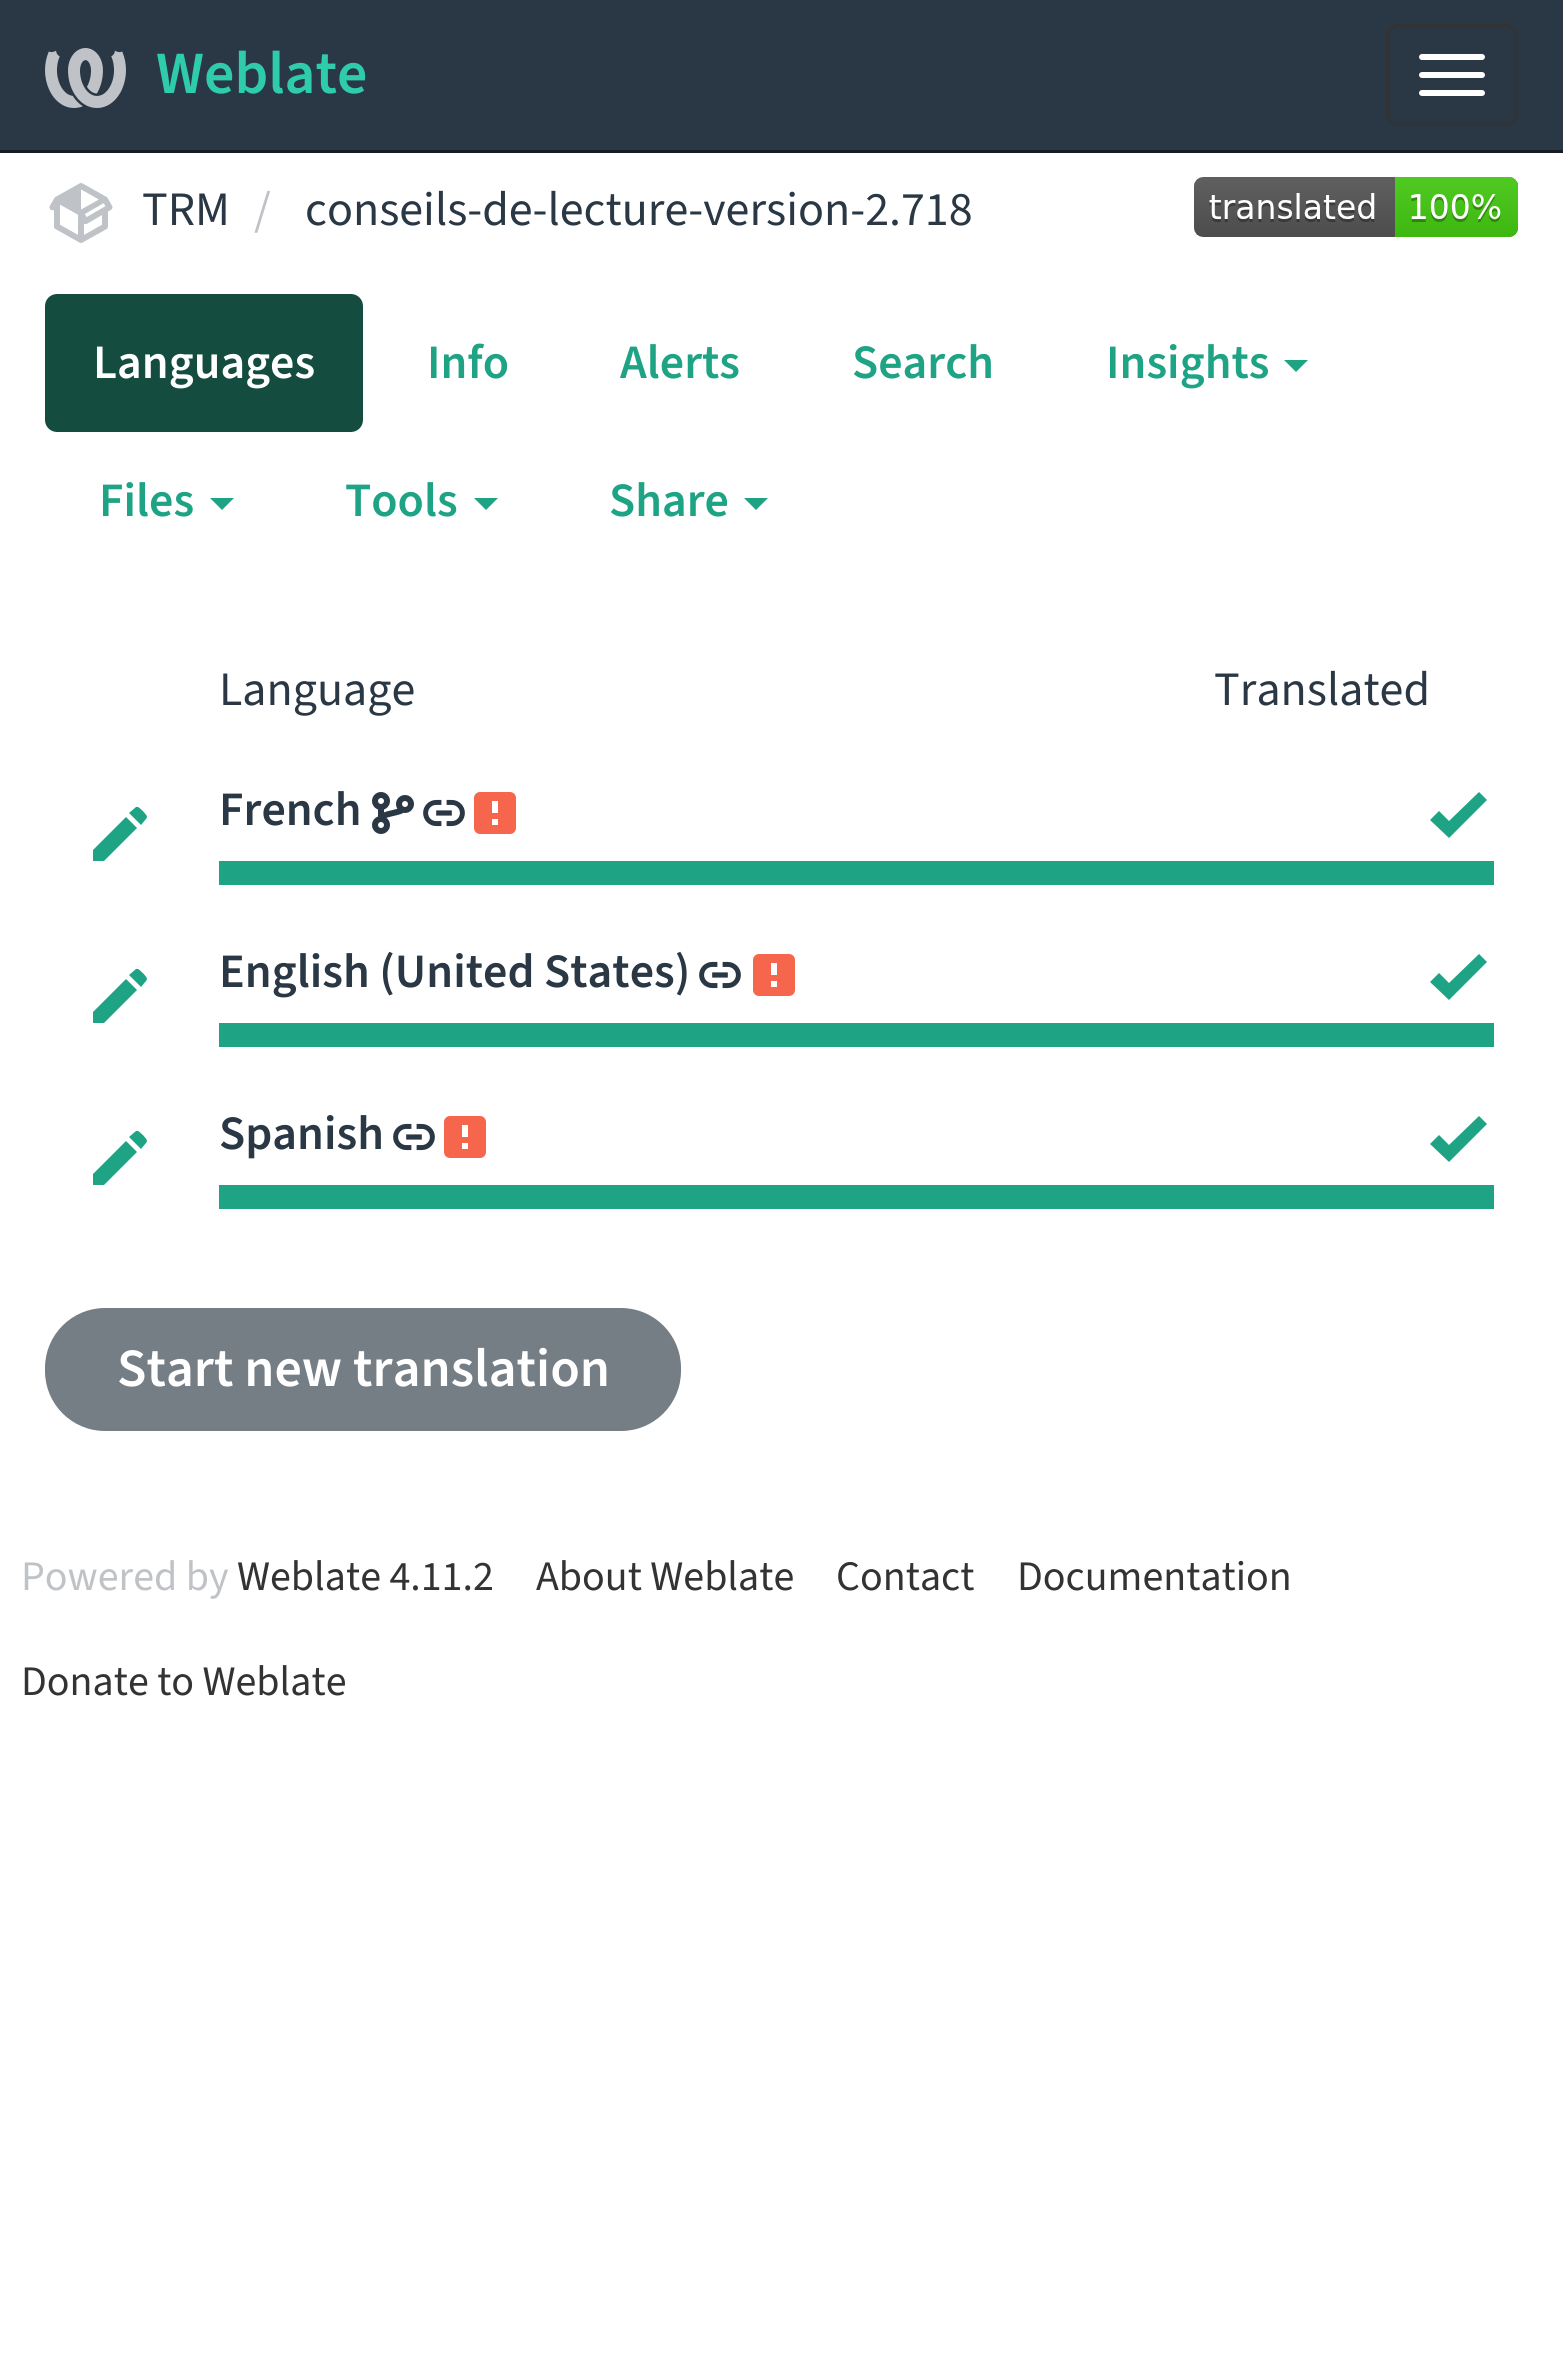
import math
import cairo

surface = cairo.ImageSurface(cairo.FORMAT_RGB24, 1563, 2366)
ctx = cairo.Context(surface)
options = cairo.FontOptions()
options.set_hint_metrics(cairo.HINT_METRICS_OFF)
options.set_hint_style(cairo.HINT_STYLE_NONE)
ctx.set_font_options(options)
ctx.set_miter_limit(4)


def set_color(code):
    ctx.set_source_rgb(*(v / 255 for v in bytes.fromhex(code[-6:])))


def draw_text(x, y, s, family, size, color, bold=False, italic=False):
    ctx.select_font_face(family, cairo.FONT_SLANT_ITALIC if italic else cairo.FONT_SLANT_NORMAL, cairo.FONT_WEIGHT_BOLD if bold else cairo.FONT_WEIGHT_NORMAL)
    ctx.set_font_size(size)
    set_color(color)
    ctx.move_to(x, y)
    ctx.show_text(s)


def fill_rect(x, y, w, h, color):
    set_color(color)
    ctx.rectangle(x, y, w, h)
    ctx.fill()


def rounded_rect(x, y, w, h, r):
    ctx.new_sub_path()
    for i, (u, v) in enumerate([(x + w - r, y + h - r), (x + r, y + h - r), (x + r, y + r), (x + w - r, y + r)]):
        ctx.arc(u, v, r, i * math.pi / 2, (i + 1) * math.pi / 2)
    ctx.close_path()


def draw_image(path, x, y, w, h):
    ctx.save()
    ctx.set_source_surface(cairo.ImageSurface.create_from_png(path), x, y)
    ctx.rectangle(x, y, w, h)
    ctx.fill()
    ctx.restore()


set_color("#ffffff")
ctx.paint()
fill_rect(0, 0, 1563, 150, "#2a3744")
fill_rect(0, 150, 1563, 3, "#171d24")
draw_image("assets/img1.png", 45, 48, 81, 60)
draw_text(156, 93, "Weblate", "Source Sans 3 SemiBold", 60, "#2eccaa")
rounded_rect(1387.5, 25.5, 129, 99, 10.5)
set_color("#333333")
ctx.set_line_width(3)
ctx.stroke()
set_color("#ffffff")
rounded_rect(1419, 54, 66, 6, 3)
ctx.fill()
rounded_rect(1419, 72, 66, 6, 3)
ctx.fill()
rounded_rect(1419, 90, 66, 6, 3)
ctx.fill()
draw_image("assets/img2.png", 49, 183, 64, 60)
draw_text(142, 225, "TRM", "Source Sans 3", 48, "#2a3744")
draw_text(254, 225, "/", "Source Sans 3", 48, "#bfc3c7")
draw_text(305, 225, "conseils-de-lecture-version-2.718", "Source Sans 3", 48, "#2a3744")
draw_image("assets/img3.png", 1194, 177, 324, 60)
set_color("#144d3f")
rounded_rect(46.5, 295.5, 315, 135, 10.5)
ctx.fill_preserve()
ctx.stroke()
draw_text(93, 378, "Languages", "Source Sans 3 SemiBold", 48, "#ffffff")
draw_text(427, 378, "Info", "Source Sans 3 SemiBold", 48, "#1fa385")
draw_text(620, 378, "Alerts", "Source Sans 3 SemiBold", 48, "#1fa385")
draw_text(852, 378, "Search", "Source Sans 3 SemiBold", 48, "#1fa385")
draw_text(1106, 378, "Insights", "Source Sans 3 SemiBold", 48, "#1fa385")
ctx.new_path()
ctx.move_to(1284, 360)
ctx.line_to(1308, 360)
ctx.line_to(1296, 372)
ctx.close_path()
ctx.fill()
draw_text(99, 516, "Files", "Source Sans 3 SemiBold", 48, "#1fa385")
ctx.new_path()
ctx.move_to(210, 498)
ctx.line_to(234, 498)
ctx.line_to(222, 510)
ctx.close_path()
ctx.fill()
draw_text(345, 516, "Tools", "Source Sans 3 SemiBold", 48, "#1fa385")
ctx.new_path()
ctx.move_to(474, 498)
ctx.line_to(498, 498)
ctx.line_to(486, 510)
ctx.close_path()
ctx.fill()
draw_text(609, 516, "Share", "Source Sans 3 SemiBold", 48, "#1fa385")
ctx.new_path()
ctx.move_to(744, 498)
ctx.line_to(768, 498)
ctx.line_to(756, 510)
ctx.close_path()
ctx.fill()
draw_text(219, 705, "Language", "Source Sans 3", 48, "#2a3744")
draw_text(1214, 705, "Translated", "Source Sans 3", 48, "#2a3744")
set_color("#1fa385")
ctx.new_path()
ctx.move_to(93, 850)
ctx.line_to(93, 861)
ctx.line_to(104, 861)
ctx.line_to(137, 828)
ctx.line_to(126, 817)
ctx.close_path()
ctx.move_to(146, 819)
ctx.curve_to(149, 816, 144, 813, 143, 811)
ctx.curve_to(141, 810, 139, 806, 136, 807)
ctx.line_to(129, 813)
ctx.line_to(141, 825)
ctx.close_path()
ctx.fill()
draw_text(219, 825, "French", "Source Sans 3 SemiBold", 48, "#2a3744")
draw_image("assets/img4.png", 372, 792, 42, 42)
draw_image("assets/img5.png", 423, 799, 42, 28)
draw_image("assets/img6.png", 474, 792, 42, 42)
set_color("#1fa385")
ctx.new_path()
ctx.move_to(1449, 838)
ctx.line_to(1430, 820)
ctx.line_to(1439, 811)
ctx.line_to(1449, 821)
ctx.line_to(1479, 792)
ctx.line_to(1487, 800)
ctx.close_path()
ctx.fill()
fill_rect(219, 861, 1275, 24, "#1fa385")
ctx.new_path()
ctx.move_to(93, 1012)
ctx.line_to(93, 1023)
ctx.line_to(104, 1023)
ctx.line_to(137, 990)
ctx.line_to(126, 979)
ctx.close_path()
ctx.move_to(146, 981)
ctx.curve_to(149, 978, 144, 975, 143, 973)
ctx.curve_to(141, 972, 139, 968, 136, 969)
ctx.line_to(129, 975)
ctx.line_to(141, 987)
ctx.close_path()
ctx.fill()
draw_text(219, 987, "English (United States)", "Source Sans 3 SemiBold", 48, "#2a3744")
draw_image("assets/img5.png", 699, 961, 42, 28)
draw_image("assets/img6.png", 753, 954, 42, 42)
set_color("#1fa385")
ctx.new_path()
ctx.move_to(1449, 1000)
ctx.line_to(1430, 982)
ctx.line_to(1439, 973)
ctx.line_to(1449, 983)
ctx.line_to(1479, 954)
ctx.line_to(1487, 962)
ctx.close_path()
ctx.fill()
fill_rect(219, 1023, 1275, 24, "#1fa385")
ctx.new_path()
ctx.move_to(93, 1174)
ctx.line_to(93, 1185)
ctx.line_to(104, 1185)
ctx.line_to(137, 1152)
ctx.line_to(126, 1141)
ctx.close_path()
ctx.move_to(146, 1143)
ctx.curve_to(149, 1140, 144, 1137, 143, 1135)
ctx.curve_to(141, 1134, 139, 1130, 136, 1131)
ctx.line_to(129, 1137)
ctx.line_to(141, 1149)
ctx.close_path()
ctx.fill()
draw_text(219, 1149, "Spanish", "Source Sans 3 SemiBold", 48, "#2a3744")
draw_image("assets/img5.png", 393, 1123, 42, 28)
draw_image("assets/img6.png", 444, 1116, 42, 42)
set_color("#1fa385")
ctx.new_path()
ctx.move_to(1449, 1162)
ctx.line_to(1430, 1144)
ctx.line_to(1439, 1135)
ctx.line_to(1449, 1145)
ctx.line_to(1479, 1116)
ctx.line_to(1487, 1124)
ctx.close_path()
ctx.fill()
fill_rect(219, 1185, 1275, 24, "#1fa385")
set_color("#757d85")
rounded_rect(45, 1308, 636, 123, 60)
ctx.fill()
draw_text(117, 1386, "Start new translation", "Source Sans 3 SemiBold", 54, "#ffffff")
draw_text(21, 1590, "Powered by", "Source Sans 3", 42, "#bfc3c7")
draw_text(237, 1590, "Weblate 4.11.2", "Source Sans 3", 42, "#333333")
draw_text(536, 1590, "About Weblate", "Source Sans 3", 42, "#333333")
draw_text(836, 1590, "Contact", "Source Sans 3", 42, "#333333")
draw_text(1017, 1590, "Documentation", "Source Sans 3", 42, "#333333")
draw_text(21, 1695, "Donate to Weblate", "Source Sans 3", 42, "#333333")
surface.write_to_png("output.png")
